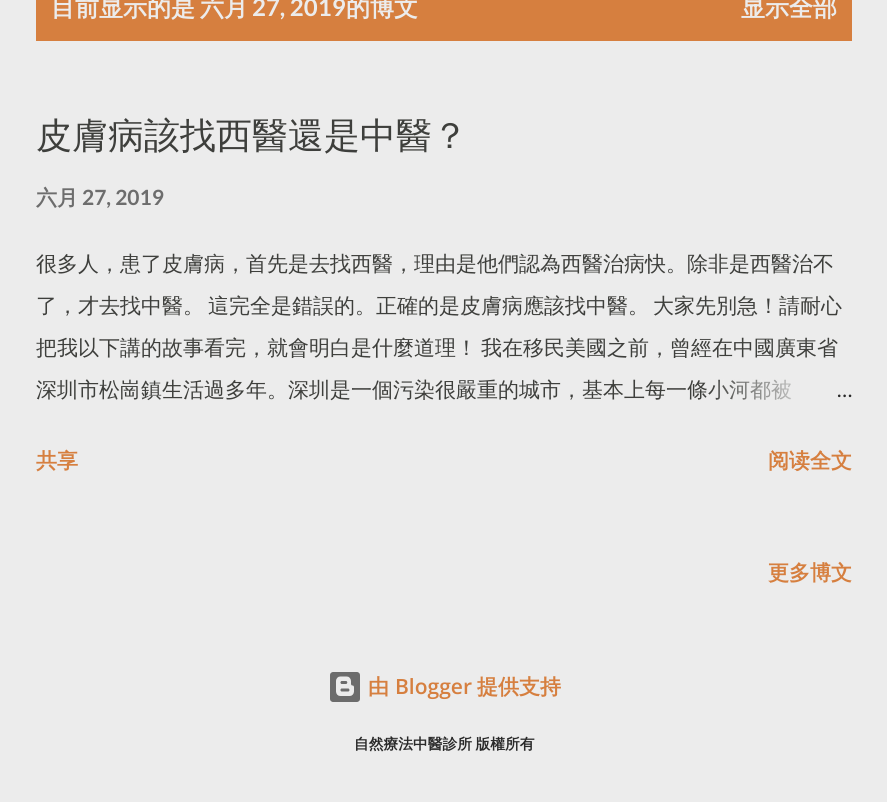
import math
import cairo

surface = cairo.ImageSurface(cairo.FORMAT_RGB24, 887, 802)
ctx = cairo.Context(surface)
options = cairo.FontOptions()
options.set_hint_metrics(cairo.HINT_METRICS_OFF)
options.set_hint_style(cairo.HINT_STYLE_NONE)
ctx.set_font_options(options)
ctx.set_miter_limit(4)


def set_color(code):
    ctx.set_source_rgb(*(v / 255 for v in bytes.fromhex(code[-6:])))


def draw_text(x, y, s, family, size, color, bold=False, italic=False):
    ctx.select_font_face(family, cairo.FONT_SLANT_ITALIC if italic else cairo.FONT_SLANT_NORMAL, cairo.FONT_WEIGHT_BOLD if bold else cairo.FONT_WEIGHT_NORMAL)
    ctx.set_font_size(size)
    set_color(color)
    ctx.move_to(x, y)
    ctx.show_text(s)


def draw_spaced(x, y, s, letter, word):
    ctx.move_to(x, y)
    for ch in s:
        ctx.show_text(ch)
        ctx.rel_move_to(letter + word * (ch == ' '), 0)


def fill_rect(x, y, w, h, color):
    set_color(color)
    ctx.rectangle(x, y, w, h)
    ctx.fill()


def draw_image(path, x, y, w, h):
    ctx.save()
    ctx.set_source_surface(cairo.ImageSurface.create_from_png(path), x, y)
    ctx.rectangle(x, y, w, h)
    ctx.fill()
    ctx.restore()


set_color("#ececec")
ctx.paint()
fill_rect(36, 0, 816, 41, "#d67f3f")
draw_text(51, 16, "目前显示的是", "WenQuanYi Zen Hei", 24, "#ececec", bold=True)
draw_text(200, 16, "六月", "WenQuanYi Zen Hei", 24, "#ececec", bold=True)
draw_text(252, 16, "27, 2019", "Lato", 24, "#ececec", bold=True)
draw_text(346, 16, "的博文", "WenQuanYi Zen Hei", 24, "#ececec", bold=True)
draw_text(741, 16, "显示全部", "WenQuanYi Zen Hei", 24, "#ececec", bold=True)
draw_text(36, 148, "皮膚病該找西醫還是中醫？", "WenQuanYi Zen Hei Medium", 36, "#3e3f3c")
draw_text(36, 205, "六月", "WenQuanYi Zen Hei", 21, "#6d6d6d", bold=True)
draw_text(82, 205, "27, 2019", "Lato", 21, "#6d6d6d", bold=True)
draw_text(36, 271, "很多人，患了皮膚病，首先是去找西醫，理由是他們認為西醫治病快。除非是西醫治不", "WenQuanYi Zen Hei Medium", 21, "#3e3f3c")
draw_text(36, 313, "了，才去找中醫。", "WenQuanYi Zen Hei Medium", 21, "#3e3f3c")
draw_text(208, 313, "這完全是錯誤的。正確的是皮膚病應該找中醫。", "WenQuanYi Zen Hei Medium", 21, "#3e3f3c")
draw_text(653, 313, "大家先別急！請耐心", "WenQuanYi Zen Hei Medium", 21, "#3e3f3c")
draw_text(36, 355, "把我以下講的故事看完，就會明白是什麼道理！", "WenQuanYi Zen Hei Medium", 21, "#3e3f3c")
draw_text(481, 355, "我在移民美國之前，曾經在中國廣東省", "WenQuanYi Zen Hei Medium", 21, "#3e3f3c")
draw_text(36, 397, "深圳市松崗鎮生活過多年。深圳是一個污染很嚴重的城市，基本上每一條小河都被", "WenQuanYi Zen Hei Medium", 21, "#3e3f3c")
gradient = cairo.LinearGradient(852, 390, 708, 390)
gradient.add_color_stop_rgba(0, 0.925, 0.925, 0.925, 1)
gradient.add_color_stop_rgba(0.2, 0.925, 0.925, 0.925, 1)
gradient.add_color_stop_rgba(1, 0.925, 0.925, 0.925, 0)
ctx.set_source(gradient)
ctx.rectangle(710, 379, 81, 21)
ctx.fill()
draw_text(837, 397, "…", "Lato", 21, "#292929")
draw_text(36, 468, "共享", "WenQuanYi Zen Hei", 21, "#d67f3f", bold=True)
draw_text(768, 468, "阅读全文", "WenQuanYi Zen Hei", 21, "#d67f3f", bold=True)
draw_text(768, 580, "更多博文", "WenQuanYi Zen Hei", 21, "#d67f3f", bold=True)
draw_image("assets/img1.png", 330, 672, 30, 30)
draw_text(368, 694, "由", "WenQuanYi Zen Hei", 21, "#d67f3f", bold=True)
draw_text(395, 694, "Blogger", "Open Sans SemiBold", 21, "#d67f3f")
draw_text(477, 694, "提供支持", "WenQuanYi Zen Hei", 21, "#d67f3f", bold=True)
ctx.set_font_size(14.75)
set_color("#292929")
draw_spaced(354, 749, "自然療法中醫診所 版權所有", 0, -1)
surface.write_to_png("output.png")
